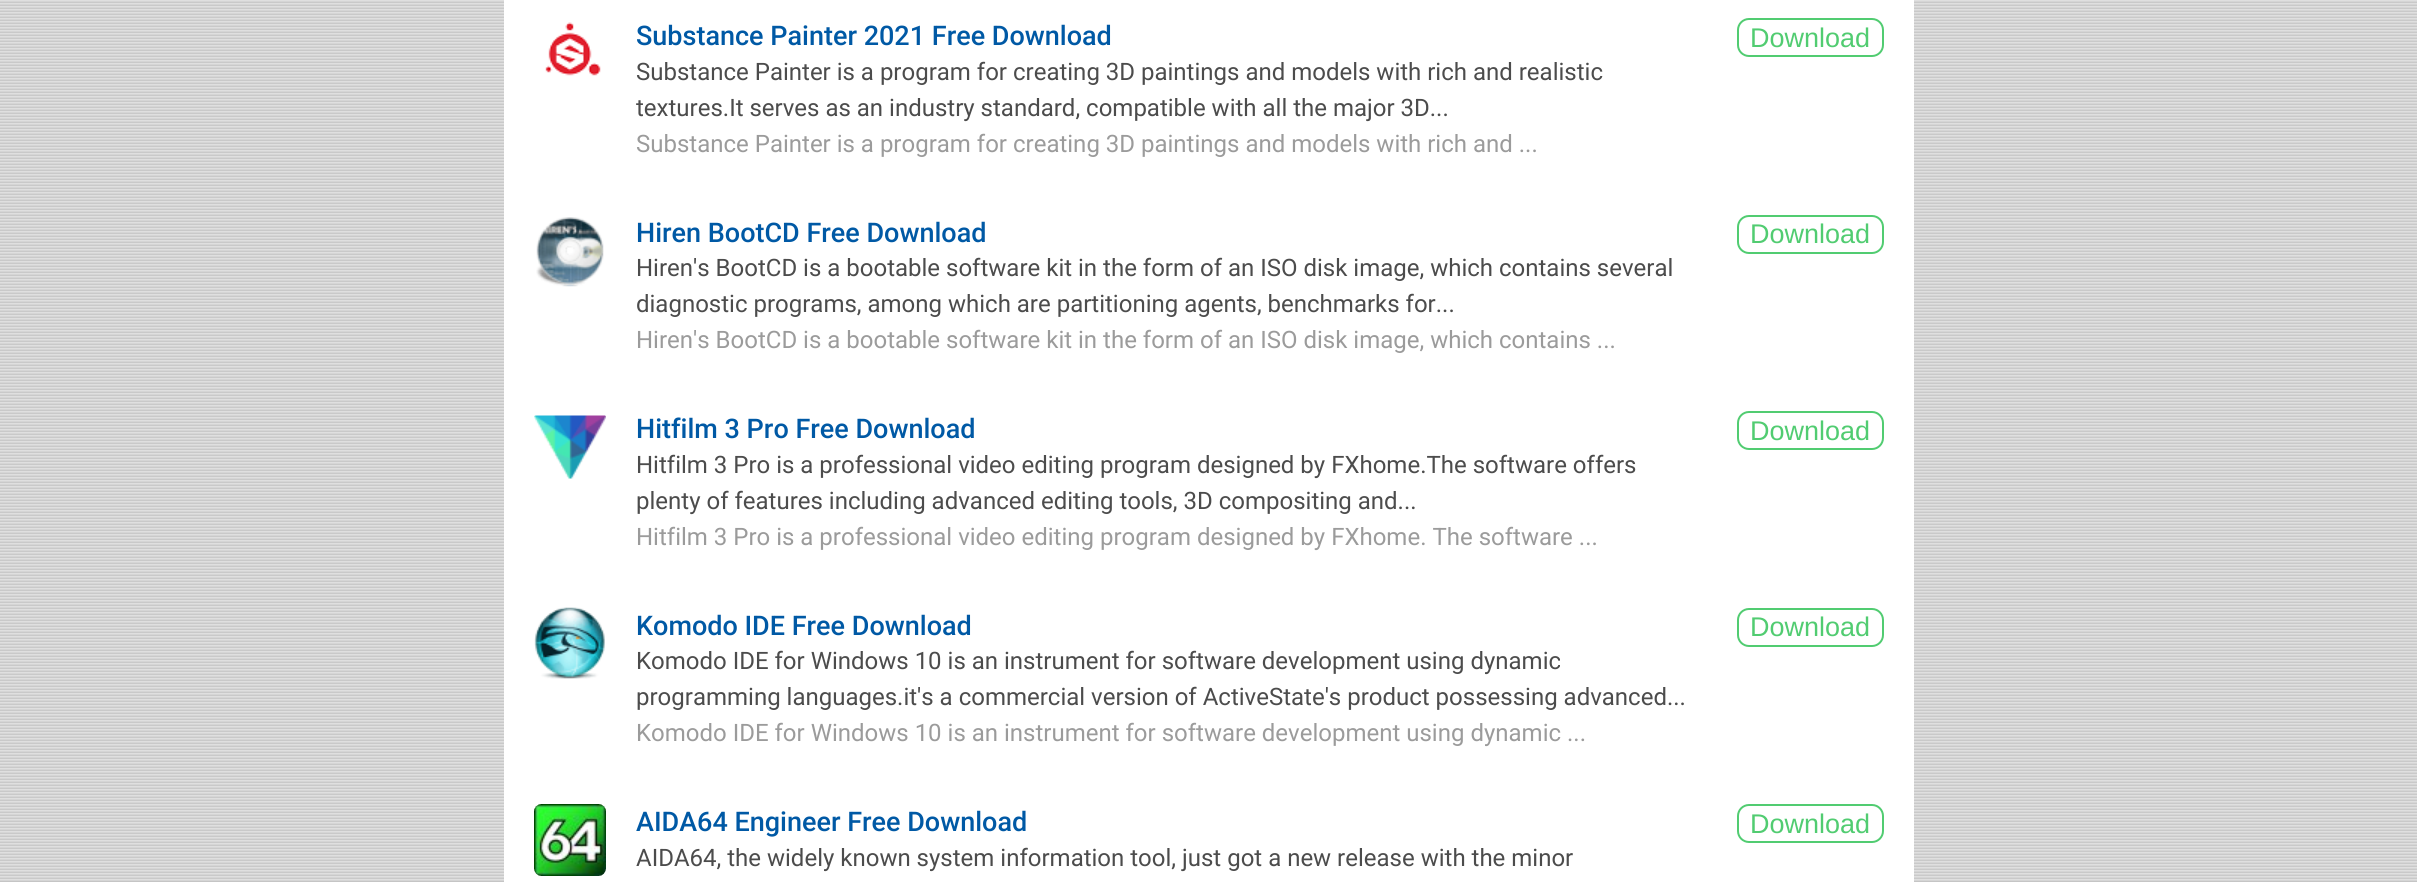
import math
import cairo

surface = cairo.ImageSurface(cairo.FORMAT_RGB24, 2417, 882)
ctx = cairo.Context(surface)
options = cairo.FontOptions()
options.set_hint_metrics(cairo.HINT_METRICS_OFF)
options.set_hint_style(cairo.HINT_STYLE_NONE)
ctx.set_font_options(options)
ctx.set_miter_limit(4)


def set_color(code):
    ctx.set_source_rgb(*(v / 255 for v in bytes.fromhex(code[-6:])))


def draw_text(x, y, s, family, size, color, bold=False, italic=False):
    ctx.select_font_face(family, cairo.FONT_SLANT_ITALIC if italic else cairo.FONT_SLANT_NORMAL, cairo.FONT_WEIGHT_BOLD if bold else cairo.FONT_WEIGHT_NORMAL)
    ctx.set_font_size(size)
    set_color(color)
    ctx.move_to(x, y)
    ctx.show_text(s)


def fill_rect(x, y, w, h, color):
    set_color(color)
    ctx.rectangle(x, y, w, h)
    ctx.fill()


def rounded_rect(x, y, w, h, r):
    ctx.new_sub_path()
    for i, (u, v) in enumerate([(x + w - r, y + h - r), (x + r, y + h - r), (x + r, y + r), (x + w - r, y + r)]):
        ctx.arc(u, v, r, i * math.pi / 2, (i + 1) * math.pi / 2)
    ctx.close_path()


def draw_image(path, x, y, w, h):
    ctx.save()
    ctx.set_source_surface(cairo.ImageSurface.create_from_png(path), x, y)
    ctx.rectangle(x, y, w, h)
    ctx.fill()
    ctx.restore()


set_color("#c5c5c5")
ctx.paint()
draw_image("assets/img1.png", 0, 0, 2417, 881)
fill_rect(504, 0, 1410, 882, "#ffffff")
draw_image("assets/img2.png", 545, 22, 56, 54)
draw_text(636, 45, "Substance Painter 2021 Free Download", "Roboto Medium", 27, "#0059a5")
draw_text(636, 80, "Substance Painter is a program for creating 3D paintings and models with rich and realistic", "Roboto", 24, "#4c4c4c")
draw_text(636, 116, "textures.It serves as an industry standard, compatible with all the major 3D...", "Roboto", 24, "#4c4c4c")
draw_text(636, 152, "Substance Painter is a program for creating 3D paintings and models with rich and ...", "Roboto", 24, "#9b9b9b")
rounded_rect(1738, 19, 145, 37, 11)
set_color("#51cc71")
ctx.stroke()
draw_text(1750, 47, "Download", "Liberation Sans", 27, "#51cc71")
draw_image("assets/img3.png", 536, 217, 68, 70)
draw_text(636, 242, "Hiren BootCD Free Download", "Roboto Medium", 27, "#0059a5")
draw_text(636, 276, "Hiren's BootCD is a bootable software kit in the form of an ISO disk image, which contains several", "Roboto", 24, "#4c4c4c")
draw_text(636, 312, "diagnostic programs, among which are partitioning agents, benchmarks for...", "Roboto", 24, "#4c4c4c")
draw_text(636, 348, "Hiren's BootCD is a bootable software kit in the form of an ISO disk image, which contains ...", "Roboto", 24, "#9b9b9b")
rounded_rect(1738, 216, 145, 37, 11)
set_color("#51cc71")
ctx.stroke()
draw_text(1750, 243, "Download", "Liberation Sans", 27, "#51cc71")
draw_image("assets/img4.png", 534, 415, 72, 64)
draw_text(636, 438, "Hitfilm 3 Pro Free Download", "Roboto Medium", 27, "#0059a5")
draw_text(636, 473, "Hitfilm 3 Pro is a professional video editing program designed by FXhome.The software offers", "Roboto", 24, "#4c4c4c")
draw_text(636, 509, "plenty of features including advanced editing tools, 3D compositing and...", "Roboto", 24, "#4c4c4c")
draw_text(636, 545, "Hitfilm 3 Pro is a professional video editing program designed by FXhome. The software ...", "Roboto", 24, "#9b9b9b")
rounded_rect(1738, 412, 145, 37, 11)
set_color("#51cc71")
ctx.stroke()
draw_text(1750, 440, "Download", "Liberation Sans", 27, "#51cc71")
draw_image("assets/img5.png", 534, 607, 71, 72)
draw_text(636, 635, "Komodo IDE Free Download", "Roboto Medium", 27, "#0059a5")
draw_text(636, 669, "Komodo IDE for Windows 10 is an instrument for software development using dynamic", "Roboto", 24, "#4c4c4c")
draw_text(636, 705, "programming languages.it's a commercial version of ActiveState's product possessing advanced...", "Roboto", 24, "#4c4c4c")
draw_text(636, 741, "Komodo IDE for Windows 10 is an instrument for software development using dynamic ...", "Roboto", 24, "#9b9b9b")
rounded_rect(1738, 609, 145, 37, 11)
set_color("#51cc71")
ctx.stroke()
draw_text(1750, 636, "Download", "Liberation Sans", 27, "#51cc71")
draw_image("assets/img6.png", 534, 804, 72, 72)
draw_text(636, 831, "AIDA64 Engineer Free Download", "Roboto Medium", 27, "#0059a5")
draw_text(636, 866, "AIDA64, the widely known system information tool, just got a new release with the minor", "Roboto", 24, "#4c4c4c")
rounded_rect(1738, 805, 145, 37, 11)
set_color("#51cc71")
ctx.stroke()
draw_text(1750, 833, "Download", "Liberation Sans", 27, "#51cc71")
surface.write_to_png("output.png")
